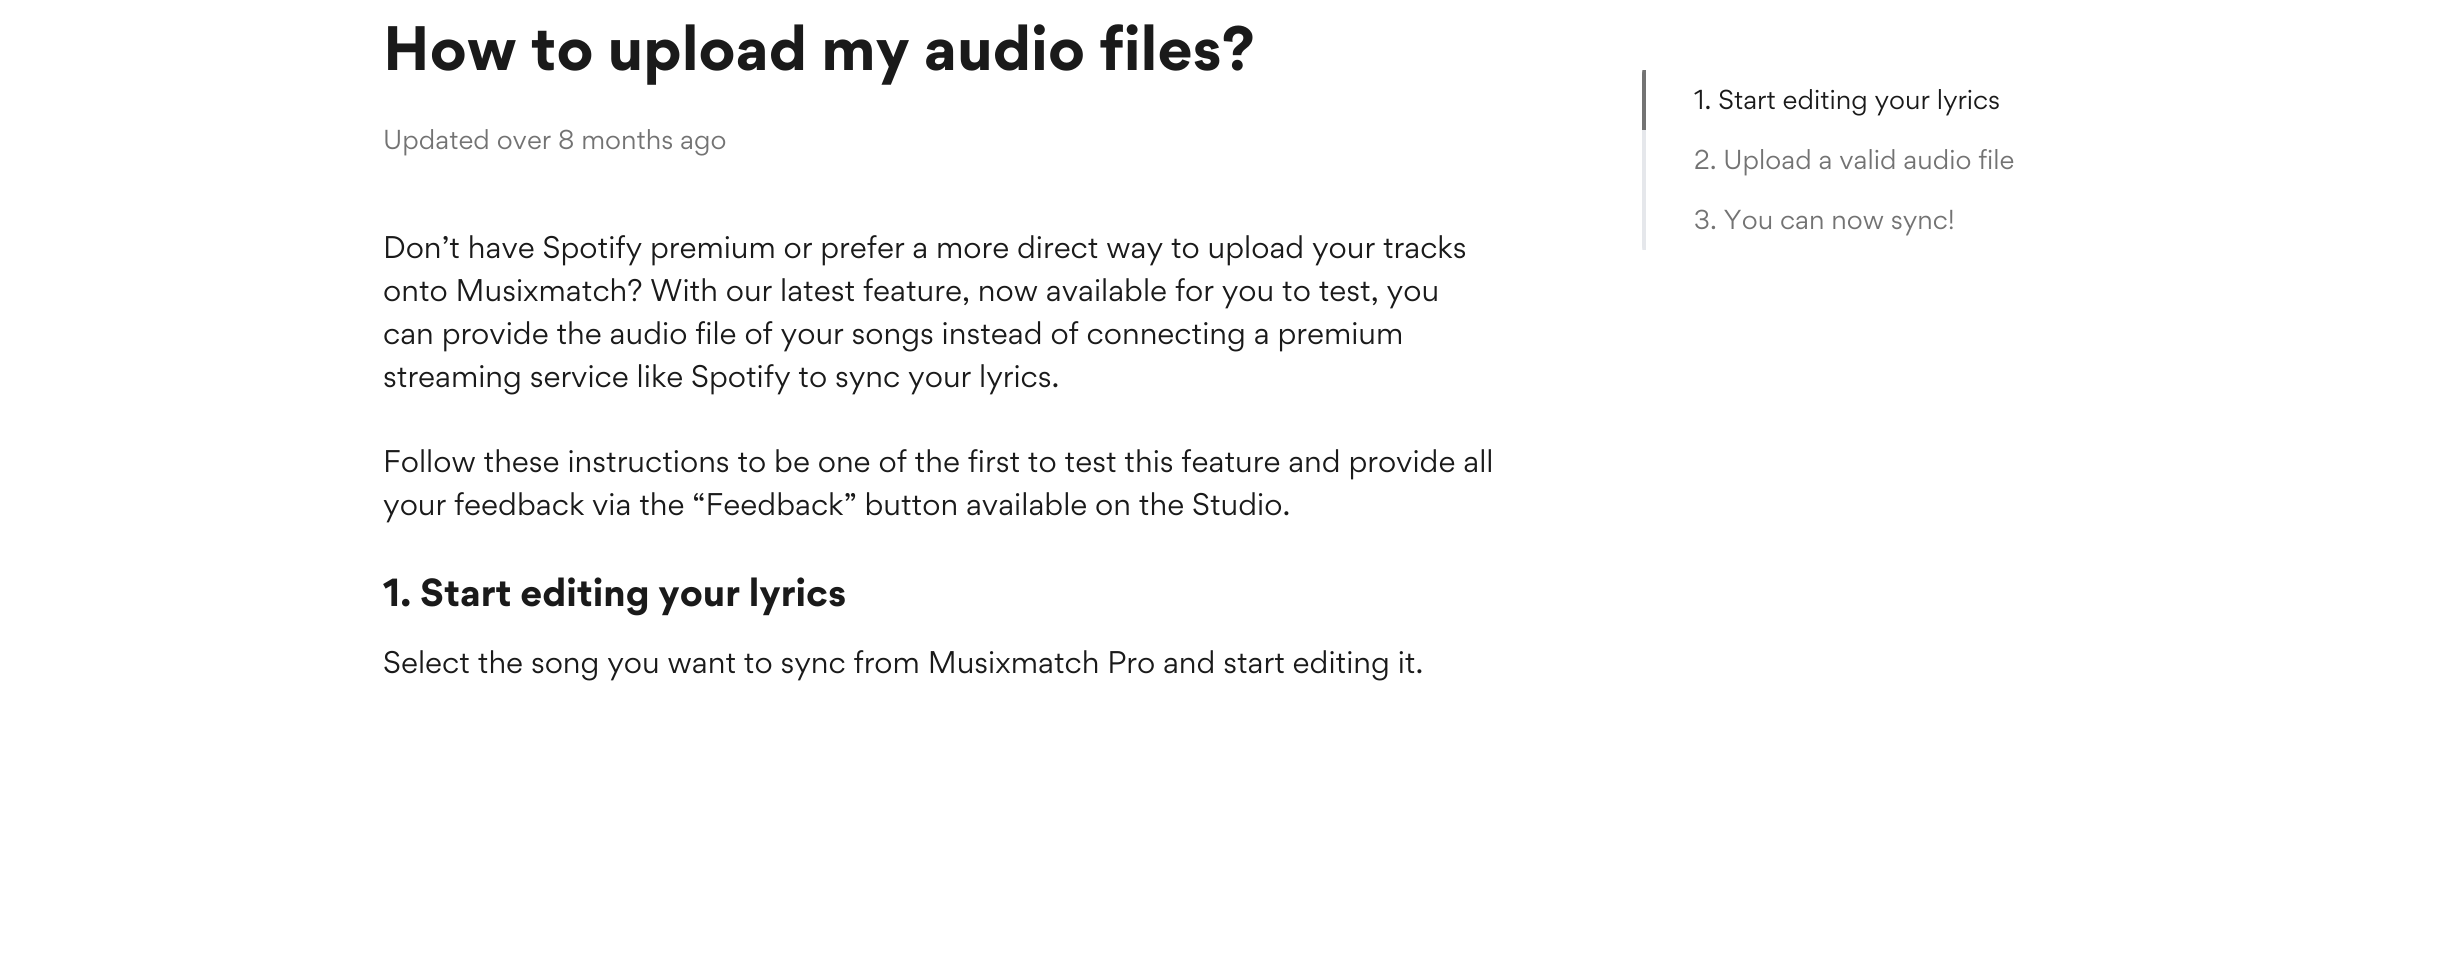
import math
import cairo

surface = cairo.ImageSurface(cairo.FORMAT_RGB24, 2446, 956)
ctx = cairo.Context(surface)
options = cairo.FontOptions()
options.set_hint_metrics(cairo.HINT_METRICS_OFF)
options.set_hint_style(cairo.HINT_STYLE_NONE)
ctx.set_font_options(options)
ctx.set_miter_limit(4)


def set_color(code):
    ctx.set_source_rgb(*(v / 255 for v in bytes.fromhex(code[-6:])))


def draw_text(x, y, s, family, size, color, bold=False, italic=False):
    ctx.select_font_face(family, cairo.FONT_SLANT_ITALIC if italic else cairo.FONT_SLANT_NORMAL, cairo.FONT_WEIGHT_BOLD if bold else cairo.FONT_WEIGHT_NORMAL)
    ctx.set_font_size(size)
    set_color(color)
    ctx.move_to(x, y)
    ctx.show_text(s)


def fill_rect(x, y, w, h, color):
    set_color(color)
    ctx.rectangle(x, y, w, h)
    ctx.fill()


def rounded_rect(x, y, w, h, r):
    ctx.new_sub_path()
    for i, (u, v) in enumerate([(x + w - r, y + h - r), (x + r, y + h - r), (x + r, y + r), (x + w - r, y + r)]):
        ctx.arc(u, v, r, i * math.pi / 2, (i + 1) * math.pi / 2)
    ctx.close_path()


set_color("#ffffff")
ctx.paint()
draw_text(383, 70, "How to upload my audio files?", "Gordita", 56, "#1a1a1a", bold=True)
draw_text(383, 149, "Updated over 8 months ago", "Gordita", 24.5, "#737373")
draw_text(383, 258, "Don’t have Spotify premium or prefer a more direct way to upload your tracks", "Gordita", 28, "#1a1a1a")
draw_text(383, 301, "onto Musixmatch? With our latest feature, now available for you to test, you", "Gordita", 28, "#1a1a1a")
draw_text(383, 344, "can provide the audio file of your songs instead of connecting a premium", "Gordita", 28, "#1a1a1a")
draw_text(383, 387, "streaming service like Spotify to sync your lyrics.", "Gordita", 28, "#1a1a1a")
draw_text(383, 472, "Follow these instructions to be one of the first to test this feature and provide all", "Gordita", 28, "#1a1a1a")
draw_text(383, 515, "your feedback via the “Feedback” button available on the Studio.", "Gordita", 28, "#1a1a1a")
draw_text(383, 606, "1. Start editing your lyrics", "Gordita", 35, "#1a1a1a", bold=True)
draw_text(383, 673, "Select the song you want to sync from Musixmatch Pro and start editing it.", "Gordita", 28, "#1a1a1a")
ctx.save()
rounded_rect(1642, 56, 421, 208, 18)
ctx.clip()
fill_rect(1642, 70, 4, 60, "#737373")
ctx.restore()
draw_text(1694, 109, "1. Start editing your lyrics", "Gordita", 24.5, "#1a1a1a")
fill_rect(1642, 130, 4, 61, "#e5e7eb")
draw_text(1694, 169, "2. Upload a valid audio file", "Gordita", 24.5, "#737373")
ctx.save()
rounded_rect(1642, 56, 421, 208, 18)
ctx.clip()
fill_rect(1642, 191, 4, 59, "#e5e7eb")
ctx.restore()
draw_text(1694, 229, "3. You can now sync!", "Gordita", 24.5, "#737373")
surface.write_to_png("output.png")
